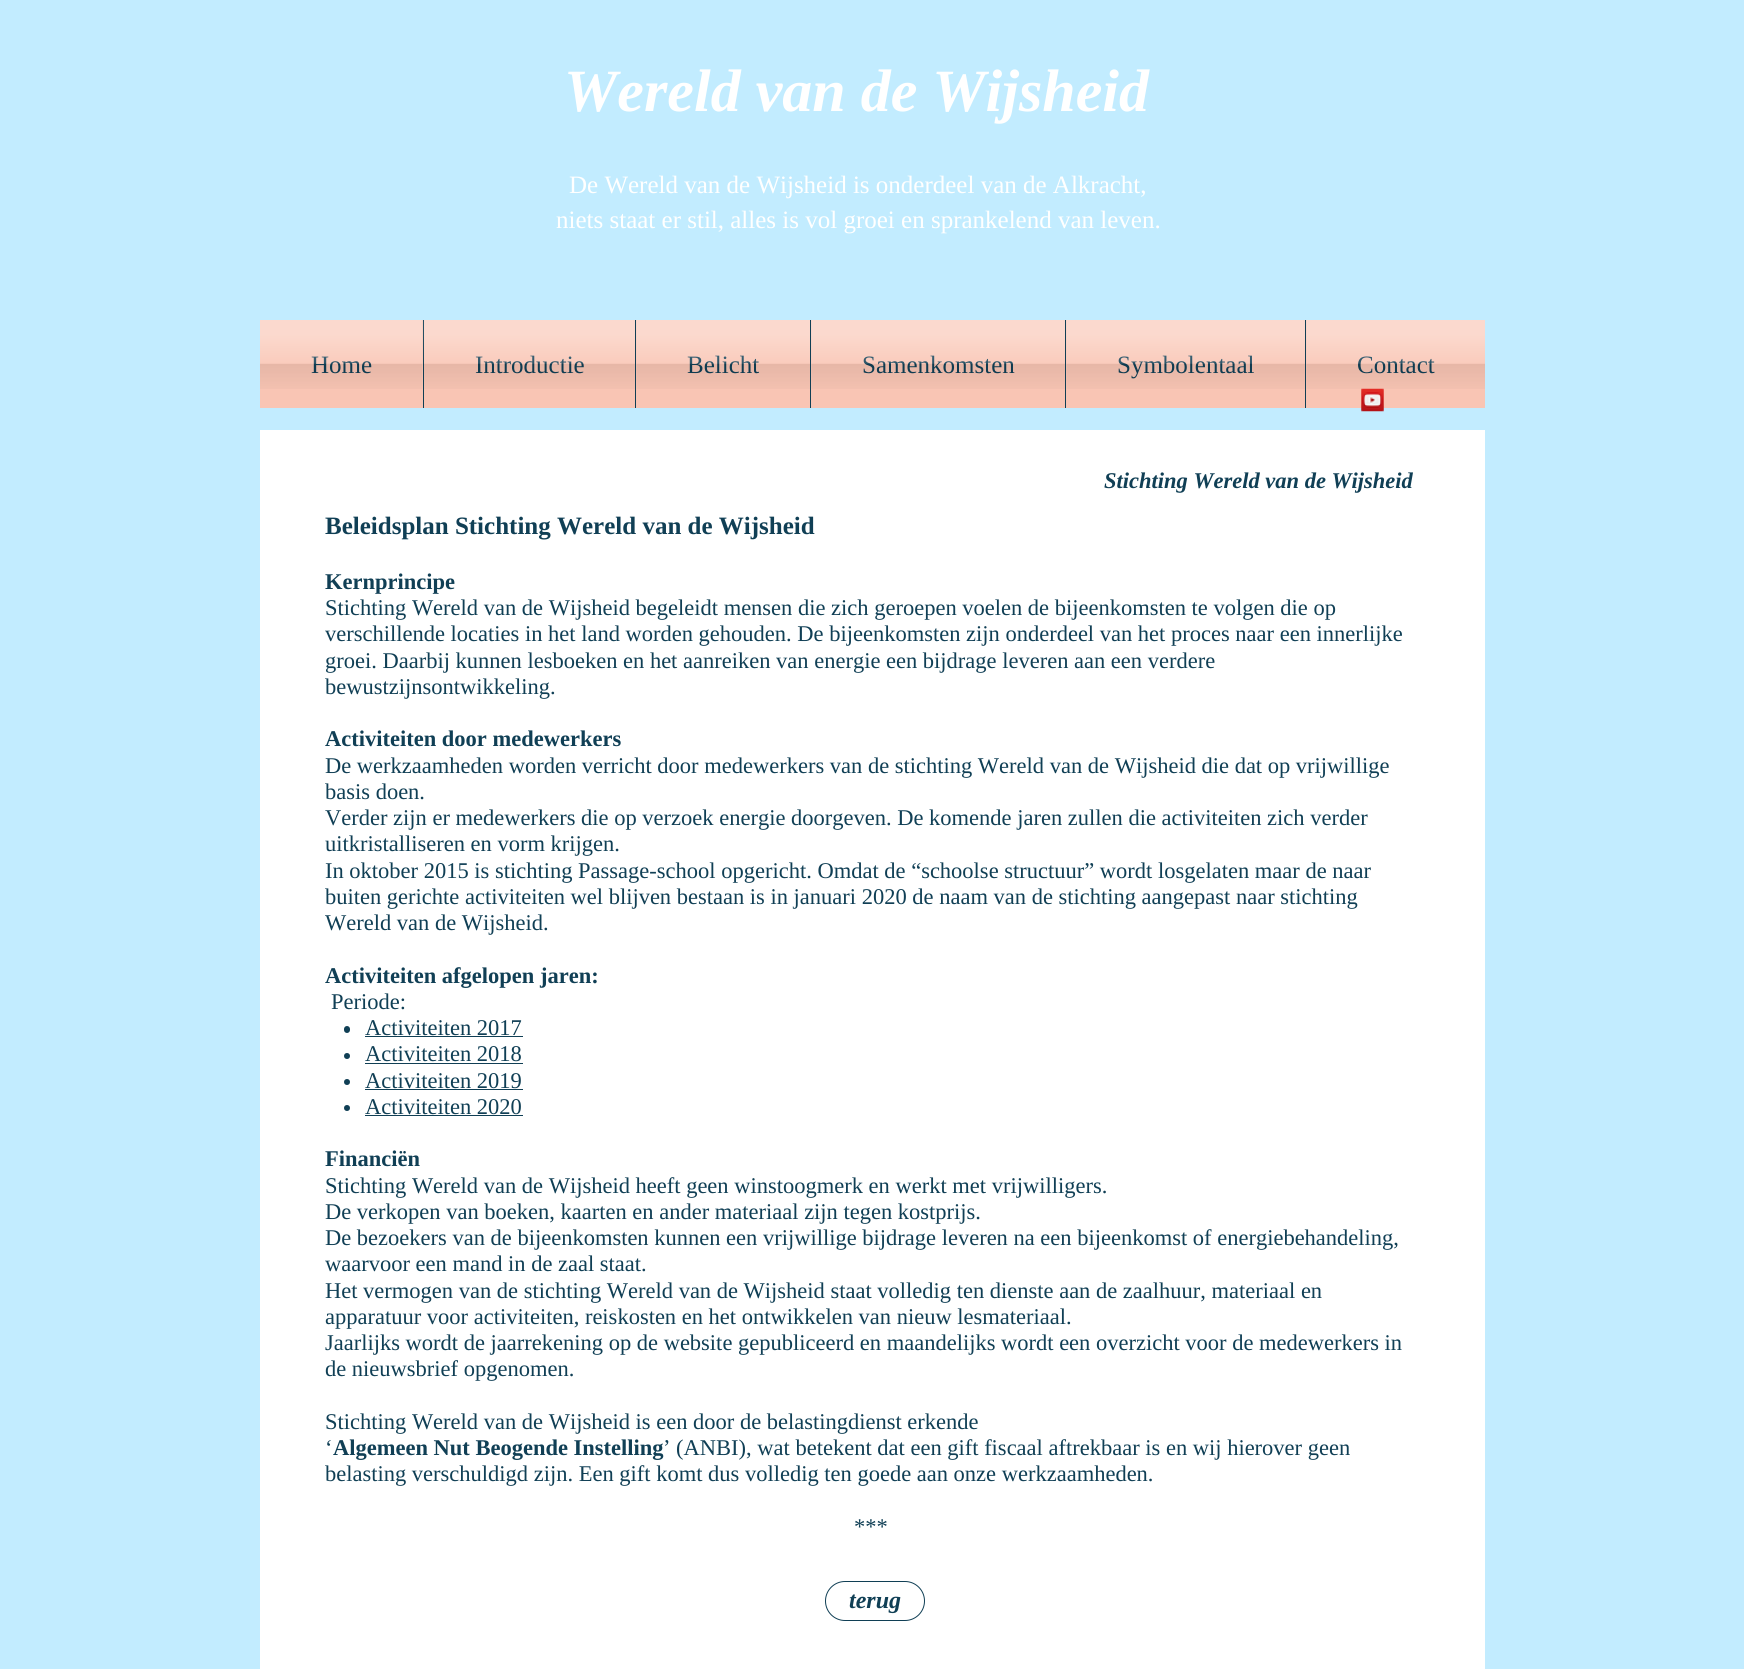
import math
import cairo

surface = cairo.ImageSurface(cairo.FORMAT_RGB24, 1744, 1669)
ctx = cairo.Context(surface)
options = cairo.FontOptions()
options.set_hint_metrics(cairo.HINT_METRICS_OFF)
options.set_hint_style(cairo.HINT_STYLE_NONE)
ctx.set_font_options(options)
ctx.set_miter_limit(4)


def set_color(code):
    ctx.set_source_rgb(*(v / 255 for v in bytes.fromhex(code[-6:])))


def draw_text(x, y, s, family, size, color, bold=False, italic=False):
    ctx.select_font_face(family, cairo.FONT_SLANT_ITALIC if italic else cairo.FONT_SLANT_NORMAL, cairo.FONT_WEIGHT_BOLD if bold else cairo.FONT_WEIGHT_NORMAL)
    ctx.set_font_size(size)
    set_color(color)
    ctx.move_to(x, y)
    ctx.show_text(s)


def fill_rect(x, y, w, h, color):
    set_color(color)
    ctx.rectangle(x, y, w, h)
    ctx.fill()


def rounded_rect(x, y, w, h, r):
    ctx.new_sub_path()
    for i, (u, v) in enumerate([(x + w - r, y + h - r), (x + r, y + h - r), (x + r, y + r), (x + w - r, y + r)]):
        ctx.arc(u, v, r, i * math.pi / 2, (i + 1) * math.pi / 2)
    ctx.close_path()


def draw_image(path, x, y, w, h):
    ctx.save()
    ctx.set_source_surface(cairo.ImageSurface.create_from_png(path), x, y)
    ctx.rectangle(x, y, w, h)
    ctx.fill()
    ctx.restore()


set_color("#c2ecff")
ctx.paint()
draw_text(564, 111, "Wereld van de Wijsheid", "Liberation Serif", 60, "#ffffff", bold=True, italic=True)
draw_text(569, 193, "De Wereld van de Wijsheid is onderdeel van de Alkracht,", "Liberation Serif", 25, "#ffffff")
draw_text(556, 228, "niets staat er stil, alles is vol groei en sprankelend van leven.", "Liberation Serif", 25, "#ffffff")
fill_rect(260, 320, 163, 88, "#f9c5b4")
draw_text(311, 373, "Home", "Liberation Serif", 25, "#103f55")
draw_image("assets/img1.png", 260, 320, 163, 69)
fill_rect(424, 320, 211, 88, "#f9c5b4")
fill_rect(423, 320, 1, 88, "#103f55")
draw_text(475, 373, "Introductie", "Liberation Serif", 25, "#103f55")
draw_image("assets/img2.png", 423, 320, 212, 69)
fill_rect(636, 320, 174, 88, "#f9c5b4")
fill_rect(635, 320, 1, 88, "#103f55")
draw_text(687, 373, "Belicht", "Liberation Serif", 25, "#103f55")
draw_image("assets/img3.png", 636, 320, 174, 69)
fill_rect(811, 320, 254, 88, "#f9c5b4")
fill_rect(810, 320, 1, 88, "#103f55")
draw_text(862, 373, "Samenkomsten", "Liberation Serif", 25, "#103f55")
draw_image("assets/img4.png", 811, 320, 254, 69)
fill_rect(1066, 320, 239, 88, "#f9c5b4")
fill_rect(1065, 320, 1, 88, "#103f55")
draw_text(1117, 373, "Symbolentaal", "Liberation Serif", 25, "#103f55")
draw_image("assets/img5.png", 1066, 320, 239, 69)
fill_rect(1306, 320, 179, 88, "#f9c5b4")
fill_rect(1305, 320, 1, 88, "#103f55")
draw_text(1357, 373, "Contact", "Liberation Serif", 25, "#103f55")
draw_image("assets/img6.png", 1306, 320, 179, 69)
draw_image("assets/img7.png", 1361, 388, 23, 24)
fill_rect(260, 430, 1225, 1239, "#ffffff")
draw_text(1104, 488, "Stichting Wereld van de Wijsheid", "Liberation Serif", 22.5, "#103f55", bold=True, italic=True)
draw_text(325, 534, "Beleidsplan Stichting Wereld van de Wijsheid", "Liberation Serif", 25, "#103f55", bold=True)
draw_text(325, 589, "Kernprincipe", "Liberation Serif", 22.5, "#103f55", bold=True)
draw_text(325, 615, "Stichting Wereld van de Wijsheid begeleidt mensen die zich geroepen voelen de bijeenkomsten te volgen die op", "Liberation Serif", 22.5, "#103f55")
draw_text(325, 641, "verschillende locaties in het land worden gehouden. De bijeenkomsten zijn onderdeel van het proces naar een innerlijke", "Liberation Serif", 22.5, "#103f55")
draw_text(325, 668, "groei. Daarbij kunnen lesboeken en het aanreiken van energie een bijdrage leveren aan een verdere", "Liberation Serif", 22.5, "#103f55")
draw_text(325, 694, "bewustzijnsontwikkeling.", "Liberation Serif", 22.5, "#103f55")
draw_text(325, 746, "Activiteiten door medewerkers", "Liberation Serif", 22.5, "#103f55", bold=True)
draw_text(325, 773, "De werkzaamheden worden verricht door medewerkers van de stichting Wereld van de Wijsheid die dat op vrijwillige", "Liberation Serif", 22.5, "#103f55")
draw_text(325, 799, "basis doen.", "Liberation Serif", 22.5, "#103f55")
draw_text(325, 825, "Verder zijn er medewerkers die op verzoek energie doorgeven. De komende jaren zullen die activiteiten zich verder", "Liberation Serif", 22.5, "#103f55")
draw_text(325, 851, "uitkristalliseren en vorm krijgen.", "Liberation Serif", 22.5, "#103f55")
draw_text(325, 878, "In oktober 2015 is stichting Passage-school opgericht. Omdat de “schoolse structuur” wordt losgelaten maar de naar", "Liberation Serif", 22.5, "#103f55")
draw_text(325, 904, "buiten gerichte activiteiten wel blijven bestaan is in januari 2020 de naam van de stichting aangepast naar stichting", "Liberation Serif", 22.5, "#103f55")
draw_text(325, 930, "Wereld van de Wijsheid.", "Liberation Serif", 22.5, "#103f55")
draw_text(325, 983, "Activiteiten afgelopen jaren:", "Liberation Serif", 22.5, "#103f55", bold=True)
draw_text(331, 1009, "Periode:", "Liberation Serif", 22.5, "#103f55")
rounded_rect(344, 1026, 6, 7, 3)
ctx.fill()
draw_text(365, 1035, "Activiteiten 2017", "Liberation Serif", 22.5, "#103f55")
fill_rect(365, 1036, 158, 1, "#103f55")
ctx.new_path()
ctx.arc(347, 1056, 3, 0, 2 * math.pi)
ctx.fill()
draw_text(365, 1061, "Activiteiten 2018", "Liberation Serif", 22.5, "#103f55")
fill_rect(365, 1063, 158, 1, "#103f55")
ctx.new_path()
ctx.arc(347, 1082, 3, 0, 2 * math.pi)
ctx.fill()
draw_text(365, 1088, "Activiteiten 2019", "Liberation Serif", 22.5, "#103f55")
fill_rect(365, 1089, 158, 1, "#103f55")
ctx.new_path()
ctx.arc(347, 1108, 3, 0, 2 * math.pi)
ctx.fill()
draw_text(365, 1114, "Activiteiten 2020", "Liberation Serif", 22.5, "#103f55")
fill_rect(365, 1115, 158, 1, "#103f55")
draw_text(325, 1166, "Financiën", "Liberation Serif", 22.5, "#103f55", bold=True)
draw_text(325, 1193, "Stichting Wereld van de Wijsheid heeft geen winstoogmerk en werkt met vrijwilligers.", "Liberation Serif", 22.5, "#103f55")
draw_text(325, 1219, "De verkopen van boeken, kaarten en ander materiaal zijn tegen kostprijs.", "Liberation Serif", 22.5, "#103f55")
draw_text(325, 1245, "De bezoekers van de bijeenkomsten kunnen een vrijwillige bijdrage leveren na een bijeenkomst of energiebehandeling,", "Liberation Serif", 22.5, "#103f55")
draw_text(325, 1271, "waarvoor een mand in de zaal staat.", "Liberation Serif", 22.5, "#103f55")
draw_text(325, 1298, "Het vermogen van de stichting Wereld van de Wijsheid staat volledig ten dienste aan de zaalhuur, materiaal en", "Liberation Serif", 22.5, "#103f55")
draw_text(325, 1324, "apparatuur voor activiteiten, reiskosten en het ontwikkelen van nieuw lesmateriaal.", "Liberation Serif", 22.5, "#103f55")
draw_text(325, 1350, "Jaarlijks wordt de jaarrekening op de website gepubliceerd en maandelijks wordt een overzicht voor de medewerkers in", "Liberation Serif", 22.5, "#103f55")
draw_text(325, 1376, "de nieuwsbrief opgenomen.", "Liberation Serif", 22.5, "#103f55")
draw_text(325, 1429, "Stichting Wereld van de Wijsheid is een door de belastingdienst erkende", "Liberation Serif", 22.5, "#103f55")
draw_text(325, 1455, "‘", "Liberation Serif", 22.5, "#103f55")
draw_text(333, 1455, "Algemeen Nut Beogende Instelling", "Liberation Serif", 22.5, "#103f55", bold=True)
draw_text(663, 1455, "’ (ANBI), wat betekent dat een gift fiscaal aftrekbaar is en wij hierover geen", "Liberation Serif", 22.5, "#103f55")
draw_text(325, 1481, "belasting verschuldigd zijn. Een gift komt dus volledig ten goede aan onze werkzaamheden.", "Liberation Serif", 22.5, "#103f55")
draw_text(854, 1534, "***", "Liberation Serif", 22.5, "#103f55")
rounded_rect(825.5, 1581.5, 99, 39, 19.5)
ctx.set_line_width(1)
ctx.stroke()
draw_text(849, 1608, "terug", "Liberation Serif", 24, "#103f55", bold=True, italic=True)
surface.write_to_png("output.png")
